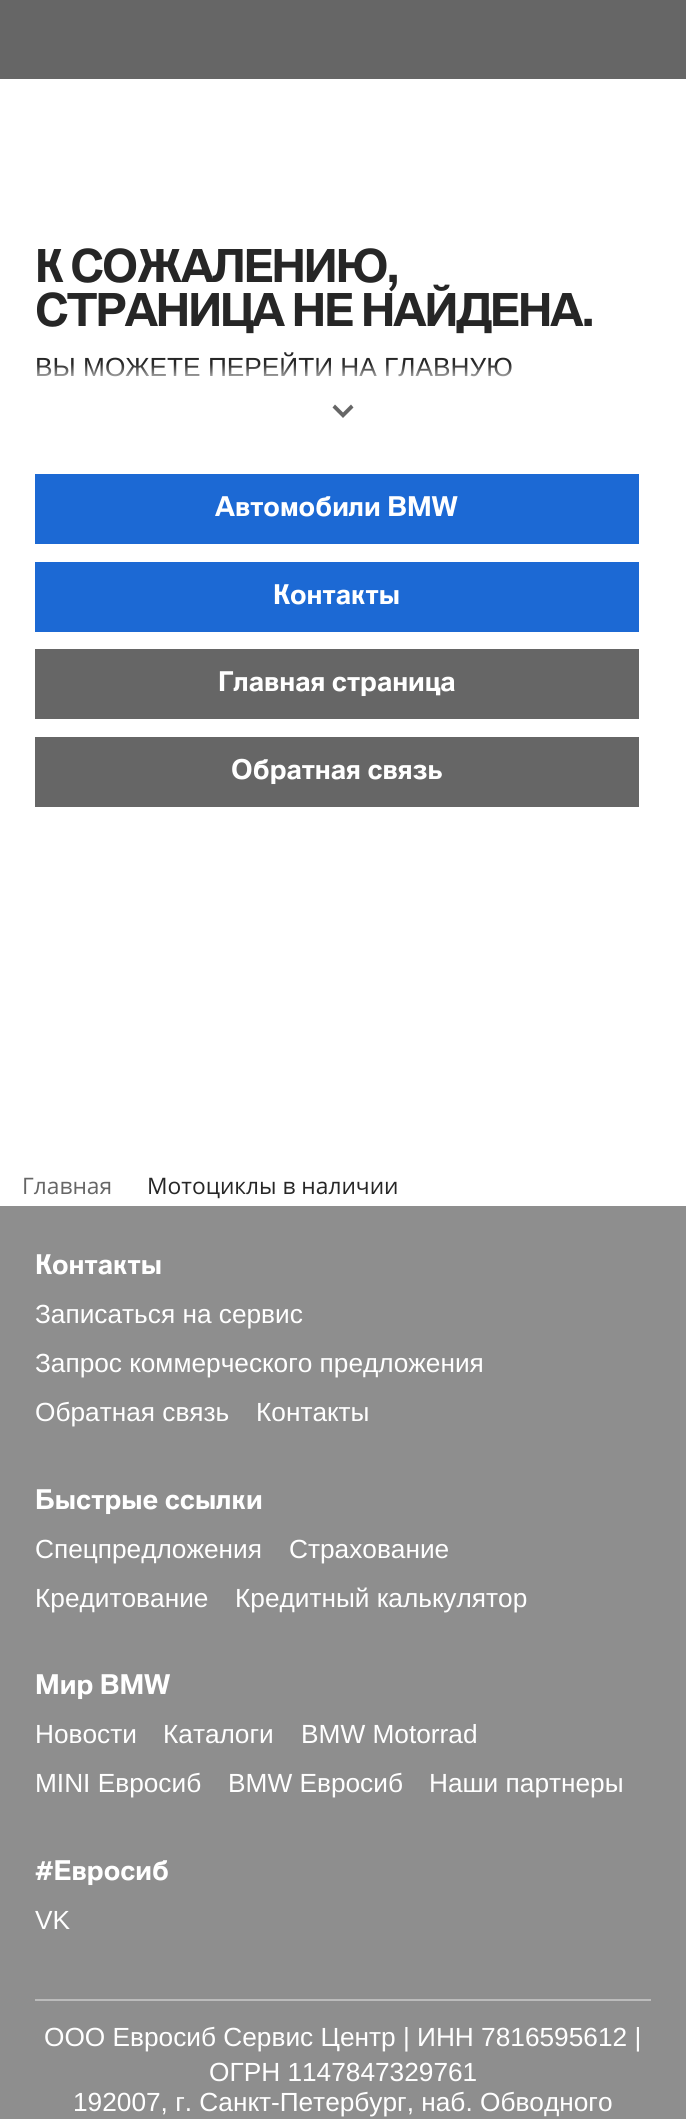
import math
import cairo

surface = cairo.ImageSurface(cairo.FORMAT_RGB24, 686, 2119)
ctx = cairo.Context(surface)
options = cairo.FontOptions()
options.set_hint_metrics(cairo.HINT_METRICS_OFF)
options.set_hint_style(cairo.HINT_STYLE_NONE)
ctx.set_font_options(options)
ctx.set_miter_limit(4)


def set_color(code):
    ctx.set_source_rgb(*(v / 255 for v in bytes.fromhex(code[-6:])))


def draw_text(x, y, s, family, size, color, bold=False, italic=False):
    ctx.select_font_face(family, cairo.FONT_SLANT_ITALIC if italic else cairo.FONT_SLANT_NORMAL, cairo.FONT_WEIGHT_BOLD if bold else cairo.FONT_WEIGHT_NORMAL)
    ctx.set_font_size(size)
    set_color(color)
    ctx.move_to(x, y)
    ctx.show_text(s)


def draw_spaced(x, y, s, letter, word):
    ctx.move_to(x, y)
    for ch in s:
        ctx.show_text(ch)
        ctx.rel_move_to(letter + word * (ch == ' '), 0)


def fill_rect(x, y, w, h, color):
    set_color(color)
    ctx.rectangle(x, y, w, h)
    ctx.fill()


set_color("#ffffff")
ctx.paint()
fill_rect(0, 0, 686, 79, "#666666")
ctx.select_font_face("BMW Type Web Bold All", cairo.FONT_SLANT_NORMAL, cairo.FONT_WEIGHT_BOLD)
ctx.set_font_size(43.75)
set_color("#262626")
draw_spaced(35, 282, "К СОЖАЛЕНИЮ,", -2, 0)
draw_spaced(35, 326, "СТРАНИЦА НЕ НАЙДЕНА.", -2, 0)
draw_text(35, 376, "ВЫ МОЖЕТЕ ПЕРЕЙТИ НА ГЛАВНУЮ", "Liberation Sans", 26.25, "#262626")
gradient = cairo.LinearGradient(343, 364, 343, 487)
gradient.add_color_stop_rgba(0, 1, 1, 1, 0)
gradient.add_color_stop_rgba(0.18, 1, 1, 1, 1)
gradient.add_color_stop_rgba(1, 1, 1, 1, 1)
ctx.set_source(gradient)
ctx.rectangle(37, 364, 475, 13)
ctx.fill()
set_color("#666666")
ctx.new_path()
ctx.move_to(332.5, 407.5)
ctx.line_to(335, 404.5)
ctx.line_to(343, 412.5)
ctx.line_to(351, 404.5)
ctx.line_to(353.5, 407.5)
ctx.line_to(343, 418)
ctx.close_path()
ctx.fill()
fill_rect(35, 474, 604, 70, "#1c69d4")
draw_text(215, 516, "Автомобили BMW", "BMW Type Web Bold All", 26.25, "#ffffff", bold=True)
fill_rect(35, 562, 604, 70, "#1c69d4")
draw_text(273, 604, "Контакты", "BMW Type Web Bold All", 26.25, "#ffffff", bold=True)
fill_rect(35, 649, 604, 70, "#666666")
draw_text(218, 691, "Главная страница", "BMW Type Web Bold All", 26.25, "#ffffff", bold=True)
fill_rect(35, 737, 604, 70, "#666666")
draw_text(231, 779, "Обратная связь", "BMW Type Web Bold All", 26.25, "#ffffff", bold=True)
draw_text(22, 1194, "Главная", "Open Sans", 22.75, "#666666")
draw_text(147, 1194, "Мотоциклы в наличии", "Open Sans", 22.75, "#262626")
fill_rect(0, 1206, 686, 913, "#8e8e8e")
draw_text(35, 1274, "Контакты", "BMW Type Web Bold All", 26.25, "#ffffff", bold=True)
draw_text(35, 1323, "Записаться на сервис", "Liberation Sans", 26.25, "#ffffff")
draw_text(35, 1372, "Запрос коммерческого предложения", "Liberation Sans", 26.25, "#ffffff")
draw_text(35, 1421, "Обратная связь", "Liberation Sans", 26.25, "#ffffff")
draw_text(256, 1421, "Контакты", "Liberation Sans", 26.25, "#ffffff")
draw_text(35, 1509, "Быстрые ссылки", "BMW Type Web Bold All", 26.25, "#ffffff", bold=True)
draw_text(35, 1558, "Спецпредложения", "Liberation Sans", 26.25, "#ffffff")
draw_text(289, 1558, "Страхование", "Liberation Sans", 26.25, "#ffffff")
draw_text(35, 1607, "Кредитование", "Liberation Sans", 26.25, "#ffffff")
draw_text(235, 1607, "Кредитный калькулятор", "Liberation Sans", 26.25, "#ffffff")
draw_text(35, 1694, "Мир BMW", "BMW Type Web Bold All", 26.25, "#ffffff", bold=True)
draw_text(35, 1743, "Новости", "Liberation Sans", 26.25, "#ffffff")
draw_text(163, 1743, "Каталоги", "Liberation Sans", 26.25, "#ffffff")
draw_text(301, 1743, "BMW Motorrad", "Liberation Sans", 26.25, "#ffffff")
draw_text(35, 1792, "MINI Евросиб", "Liberation Sans", 26.25, "#ffffff")
draw_text(228, 1792, "BMW Евросиб", "Liberation Sans", 26.25, "#ffffff")
draw_text(429, 1792, "Наши партнеры", "Liberation Sans", 26.25, "#ffffff")
draw_text(35, 1880, "#Евросиб", "BMW Type Web Bold All", 26.25, "#ffffff", bold=True)
draw_text(35, 1929, "VK", "Liberation Sans", 26.25, "#ffffff")
fill_rect(35, 1999, 616, 2, "#bbbbbb")
draw_text(44, 2046, "ООО Евросиб Сервис Центр | ИНН 7816595612 |", "Liberation Sans", 26.25, "#ffffff")
draw_text(209, 2081, "ОГРН 1147847329761", "Liberation Sans", 26.25, "#ffffff")
draw_text(73, 2111, "192007, г. Санкт-Петербург, наб. Обводного", "Liberation Sans", 26.25, "#ffffff")
surface.write_to_png("output.png")
